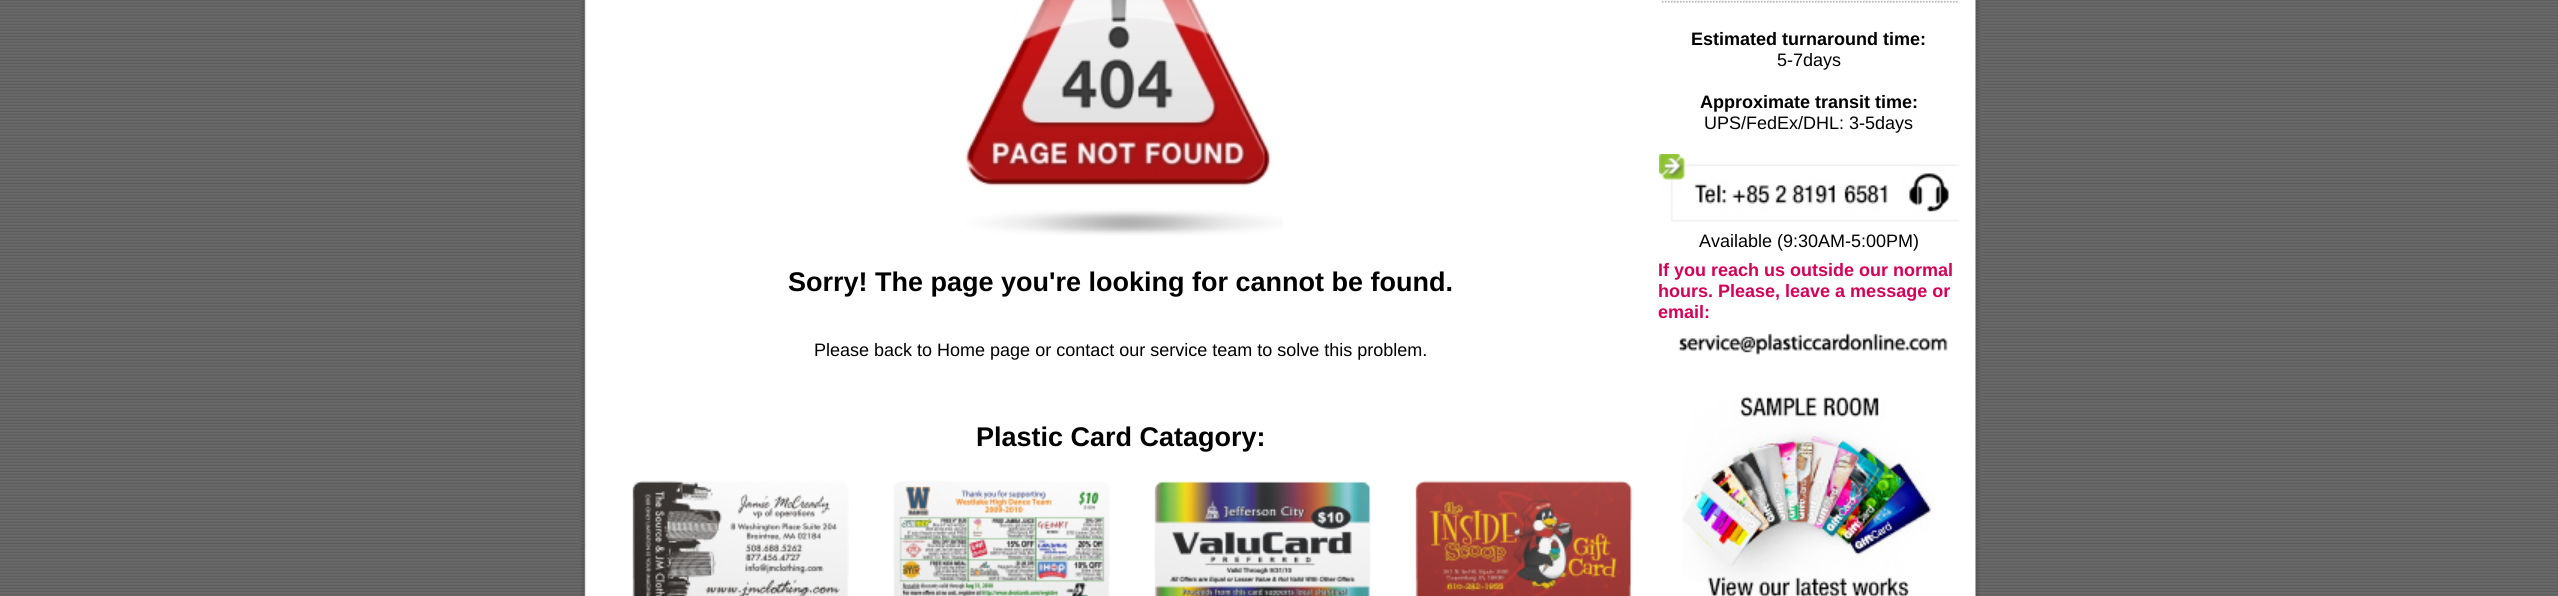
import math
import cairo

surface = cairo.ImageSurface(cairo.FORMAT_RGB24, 2558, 596)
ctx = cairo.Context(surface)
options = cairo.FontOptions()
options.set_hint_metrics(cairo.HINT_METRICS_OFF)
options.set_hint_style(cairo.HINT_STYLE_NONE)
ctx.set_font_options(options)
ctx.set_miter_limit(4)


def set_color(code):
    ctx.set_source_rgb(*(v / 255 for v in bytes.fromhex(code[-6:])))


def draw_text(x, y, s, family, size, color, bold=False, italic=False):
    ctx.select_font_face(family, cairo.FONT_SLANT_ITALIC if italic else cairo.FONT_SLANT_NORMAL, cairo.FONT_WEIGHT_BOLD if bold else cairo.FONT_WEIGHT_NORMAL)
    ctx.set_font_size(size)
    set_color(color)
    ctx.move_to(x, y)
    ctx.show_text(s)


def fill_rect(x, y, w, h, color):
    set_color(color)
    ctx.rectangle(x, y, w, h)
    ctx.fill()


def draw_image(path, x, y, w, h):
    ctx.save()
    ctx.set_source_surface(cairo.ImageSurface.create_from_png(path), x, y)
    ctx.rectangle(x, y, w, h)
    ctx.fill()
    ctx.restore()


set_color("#ffffff")
ctx.paint()
draw_image("assets/img1.png", 0, 0, 2558, 596)
draw_image("assets/img2.png", 580, 0, 20, 596)
fill_rect(600, 0, 1361, 596, "#ffffff")
draw_image("assets/img3.png", 1661, 0, 297, 3)
draw_text(1691, 45, "Estimated turnaround time:", "Liberation Sans", 18, "#000000", bold=True)
draw_text(1777, 66, "5-7days", "Liberation Sans", 18, "#000000")
draw_text(1700, 108, "Approximate transit time:", "Liberation Sans", 18, "#000000", bold=True)
draw_text(1704, 129, "UPS/FedEx/DHL: 3-5days", "Liberation Sans", 18, "#000000")
draw_image("assets/img4.png", 1659, 154, 300, 68)
draw_text(1699, 247, "Available (9:30AM-5:00PM)", "Liberation Sans", 18, "#000000")
draw_text(1658, 276, "If you reach us outside our normal", "Liberation Sans", 18, "#d20057", bold=True)
draw_text(1658, 297, "hours. Please, leave a message or", "Liberation Sans", 18, "#d20057", bold=True)
draw_text(1658, 318, "email:", "Liberation Sans", 18, "#d20057", bold=True)
draw_image("assets/img5.png", 1678, 333, 270, 23)
draw_image("assets/img6.png", 1682, 396, 253, 200)
draw_image("assets/img7.png", 965, 0, 318, 236)
draw_text(788, 291, "Sorry! The page you're looking for cannot be found.", "Liberation Sans", 27, "#000000", bold=True)
draw_text(814, 356, "Please back to Home page or contact our service team to solve this problem.", "Liberation Sans", 18, "#000000")
draw_text(976, 446, "Plastic Card Catagory:", "Liberation Sans", 27, "#000000", bold=True)
draw_image("assets/img8.png", 632, 480, 217, 116)
draw_image("assets/img9.png", 893, 481, 217, 115)
draw_image("assets/img10.png", 1154, 481, 217, 115)
draw_image("assets/img11.png", 1415, 480, 218, 116)
draw_image("assets/img12.png", 1961, 0, 19, 596)
surface.write_to_png("output.png")
